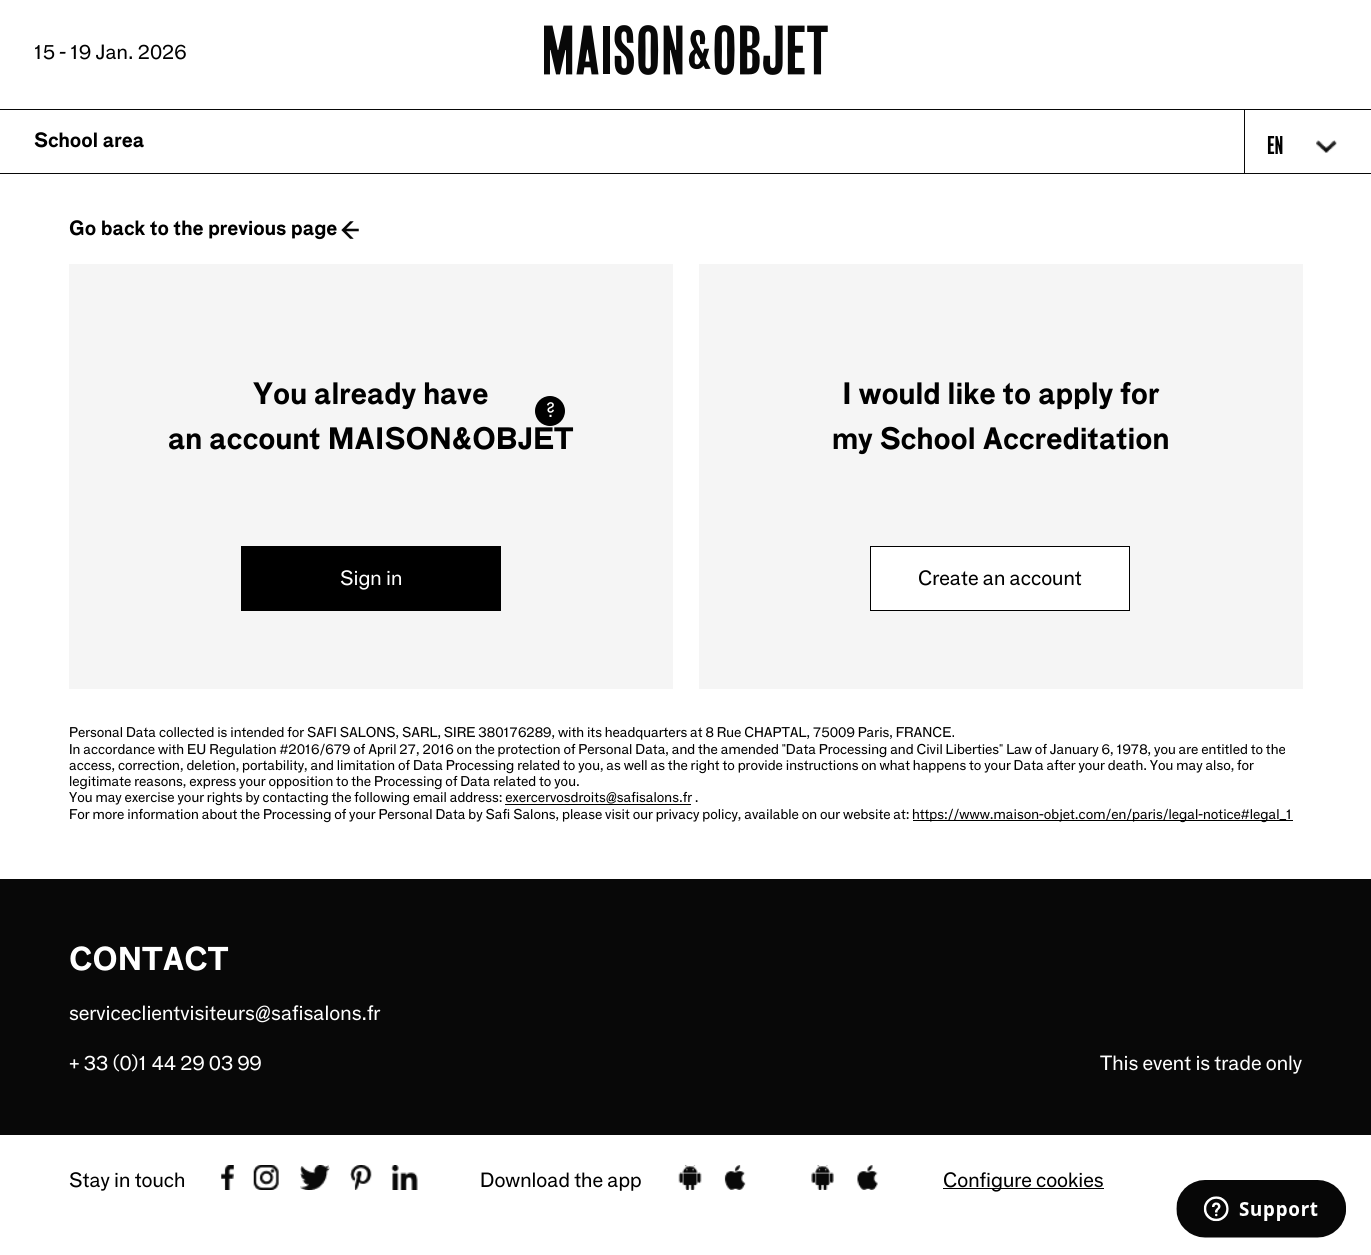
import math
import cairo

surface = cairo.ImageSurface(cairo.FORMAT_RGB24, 1371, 1255)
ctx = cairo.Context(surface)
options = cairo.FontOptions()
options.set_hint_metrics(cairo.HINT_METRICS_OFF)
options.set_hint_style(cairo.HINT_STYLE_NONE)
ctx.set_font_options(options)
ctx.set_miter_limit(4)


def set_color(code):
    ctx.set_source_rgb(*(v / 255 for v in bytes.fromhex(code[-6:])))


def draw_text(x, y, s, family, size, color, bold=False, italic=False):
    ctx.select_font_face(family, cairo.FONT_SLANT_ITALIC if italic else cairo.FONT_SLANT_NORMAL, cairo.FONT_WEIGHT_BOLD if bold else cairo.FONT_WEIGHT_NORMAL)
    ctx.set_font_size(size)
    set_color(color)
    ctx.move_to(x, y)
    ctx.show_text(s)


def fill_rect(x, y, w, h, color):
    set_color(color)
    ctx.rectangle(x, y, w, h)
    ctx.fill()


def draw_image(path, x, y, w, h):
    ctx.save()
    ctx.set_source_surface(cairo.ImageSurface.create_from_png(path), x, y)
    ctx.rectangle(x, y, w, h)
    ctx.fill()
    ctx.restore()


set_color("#ffffff")
ctx.paint()
draw_text(34, 59, "15 - 19 Jan. 2026", "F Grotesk", 20, "#000000")
draw_image("assets/img1.png", 544, 25, 284, 50)
fill_rect(0, 109, 1371, 1, "#080808")
fill_rect(0, 173, 1371, 1, "#080808")
draw_text(34, 147, "School area", "F Grotesk", 20, "#000000", bold=True)
fill_rect(1244, 110, 1, 63, "#080808")
draw_image("assets/img2.png", 1316, 140, 21, 13)
draw_text(1267, 154, "EN", "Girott", 24, "#000000")
draw_text(69, 235, "Go back to the previous page", "F Grotesk", 20, "#000000", bold=True)
draw_image("assets/img3.png", 341, 221, 18, 18)
fill_rect(69, 264, 604, 425, "#f5f5f5")
draw_text(253, 404, "You already have", "F Grotesk", 30, "#000000", bold=True)
draw_text(168, 449, "an account MAISON&OBJET", "F Grotesk", 30, "#000000", bold=True)
ctx.new_path()
ctx.arc(550, 411, 15, 0, 2 * math.pi)
ctx.fill()
draw_text(546, 417, "?", "F Grotesk", 20, "#ffffff")
fill_rect(241, 546, 260, 65, "#000000")
draw_text(340, 585, "Sign in", "F Grotesk", 20, "#ffffff")
fill_rect(699, 264, 604, 425, "#f5f5f5")
draw_text(842, 404, "I would like to apply for", "F Grotesk", 30, "#000000", bold=True)
draw_text(832, 449, "my School Accreditation", "F Grotesk", 30, "#000000", bold=True)
set_color("#ffffff")
ctx.rectangle(870.5, 546.5, 259, 64)
ctx.fill_preserve()
set_color("#000000")
ctx.set_line_width(1)
ctx.stroke()
draw_text(918, 585, "Create an account", "F Grotesk", 20, "#000000")
draw_text(69, 737, "Personal Data collected is intended for SAFI SALONS, SARL, SIRE 380176289, with its headquarters at 8 Rue CHAPTAL, 75009 Paris, FRANCE.", "F Grotesk", 13.75, "#000000")
draw_text(69, 754, "In accordance with EU Regulation #2016/679 of April 27, 2016 on the protection of Personal Data, and the amended \"Data Processing and Civil Liberties\" Law of January 6, 1978, you are entitled to the", "F Grotesk", 13.75, "#000000")
draw_text(69, 770, "access, correction, deletion, portability, and limitation of Data Processing related to you, as well as the right to provide instructions on what happens to your Data after your death. You may also, for", "F Grotesk", 13.75, "#000000")
draw_text(69, 786, "legitimate reasons, express your opposition to the Processing of Data related to you.", "F Grotesk", 13.75, "#000000")
draw_text(69, 802, "You may exercise your rights by contacting the following email address: exercervosdroits@safisalons.fr .", "F Grotesk", 13.75, "#000000")
fill_rect(505, 804, 186, 1, "#000000")
draw_text(69, 819, "For more information about the Processing of your Personal Data by Safi Salons, please visit our privacy policy, available on our website at:", "F Grotesk", 13.75, "#000000")
fill_rect(913, 820, 380, 1, "#000000")
draw_text(912, 819, "https://www.maison-objet.com/en/paris/legal-notice#legal_1", "F Grotesk", 13.75, "#000000")
fill_rect(0, 879, 1371, 256, "#080808")
draw_text(69, 970, "CONTACT", "F Grotesk", 32, "#ffffff", bold=True)
draw_text(69, 1020, "serviceclientvisiteurs@safisalons.fr", "F Grotesk", 20, "#ffffff")
draw_text(69, 1070, "+ 33 (0)1 44 29 03 99", "F Grotesk", 20, "#ffffff")
draw_text(1100, 1070, "This event is trade only", "F Grotesk", 20, "#ffffff")
draw_text(69, 1187, "Stay in touch", "F Grotesk", 20, "#000000")
draw_image("assets/img4.png", 221, 1165, 13, 25)
draw_image("assets/img5.png", 253, 1165, 26, 25)
draw_image("assets/img6.png", 300, 1165, 30, 25)
draw_image("assets/img7.png", 350, 1165, 22, 25)
draw_image("assets/img8.png", 391, 1165, 27, 25)
draw_text(480, 1187, "Download the app", "F Grotesk", 20, "#000000")
draw_image("assets/img9.png", 678, 1165, 24, 25)
draw_image("assets/img10.png", 724, 1165, 22, 25)
draw_image("assets/img11.png", 811, 1165, 23, 25)
draw_image("assets/img12.png", 857, 1165, 21, 25)
fill_rect(943, 1188, 161, 1, "#000000")
draw_text(943, 1187, "Configure cookies", "F Grotesk", 20, "#000000")
draw_image("assets/img13.png", 1176, 1180, 170, 58)
surface.write_to_png("output.png")
